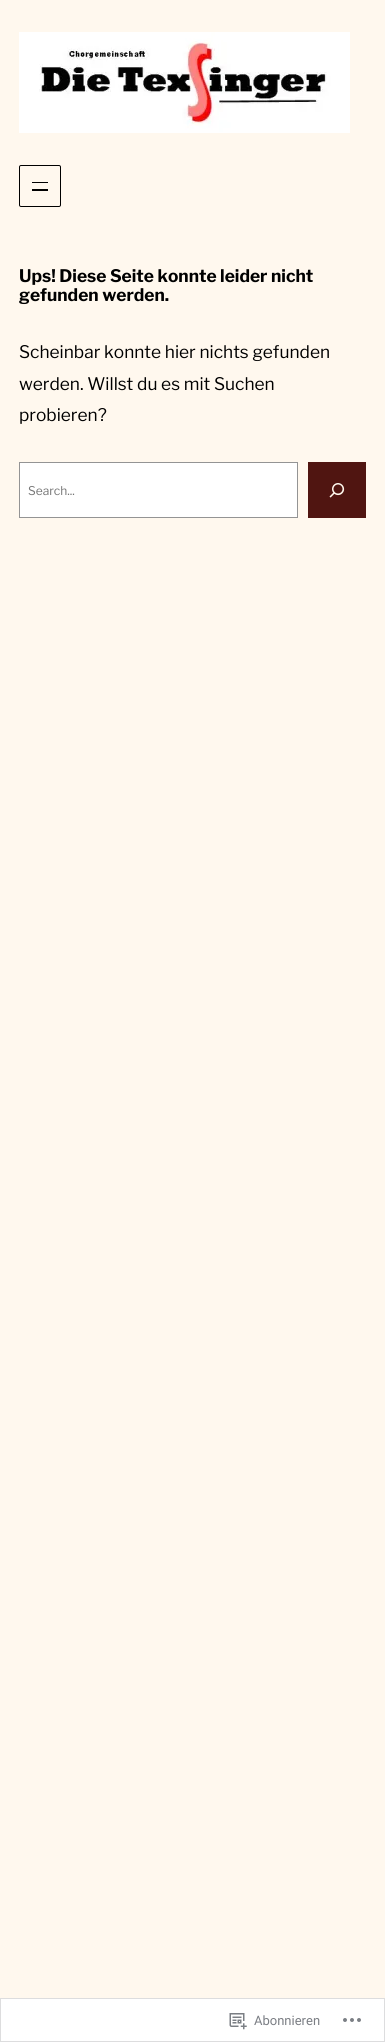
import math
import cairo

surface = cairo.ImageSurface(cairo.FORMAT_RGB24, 385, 2042)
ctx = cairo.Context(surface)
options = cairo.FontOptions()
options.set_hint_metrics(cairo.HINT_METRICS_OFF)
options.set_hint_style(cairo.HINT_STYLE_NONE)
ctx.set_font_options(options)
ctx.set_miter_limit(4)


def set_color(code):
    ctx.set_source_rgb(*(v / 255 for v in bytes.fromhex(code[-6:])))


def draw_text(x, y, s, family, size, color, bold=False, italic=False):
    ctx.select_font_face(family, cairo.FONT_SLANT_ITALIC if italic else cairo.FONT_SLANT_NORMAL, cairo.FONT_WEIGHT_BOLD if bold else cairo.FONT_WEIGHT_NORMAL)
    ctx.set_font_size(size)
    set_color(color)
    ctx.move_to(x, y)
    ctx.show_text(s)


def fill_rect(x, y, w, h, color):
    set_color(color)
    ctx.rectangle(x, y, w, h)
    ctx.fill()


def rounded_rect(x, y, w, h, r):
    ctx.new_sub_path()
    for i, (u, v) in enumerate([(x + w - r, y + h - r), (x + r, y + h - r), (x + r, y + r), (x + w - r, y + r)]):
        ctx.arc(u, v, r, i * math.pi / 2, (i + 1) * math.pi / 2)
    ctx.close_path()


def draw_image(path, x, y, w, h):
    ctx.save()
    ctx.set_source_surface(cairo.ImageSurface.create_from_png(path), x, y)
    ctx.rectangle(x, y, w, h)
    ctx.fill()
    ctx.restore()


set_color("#fff8ee")
ctx.paint()
draw_image("assets/img1.png", 19, 32, 331, 101)
rounded_rect(19.5, 165.5, 41, 41, 1.5)
set_color("#000000")
ctx.set_line_width(1)
ctx.stroke()
fill_rect(32, 182, 16, 1, "#000000")
fill_rect(32, 189, 16, 2, "#000000")
draw_text(19, 282, "Ups! Diese Seite konnte leider nicht", "Libre Franklin", 17.3, "#000000", bold=True)
draw_text(19, 301, "gefunden werden.", "Libre Franklin", 17.3, "#000000", bold=True)
draw_text(19, 358, "Scheinbar konnte hier nichts gefunden", "Libre Franklin", 17.3, "#000000")
draw_text(19, 390, "werden. Willst du es mit Suchen", "Libre Franklin", 17.3, "#000000")
draw_text(19, 421, "probieren?", "Libre Franklin", 17.3, "#000000")
set_color("#ffffff")
ctx.rectangle(19.5, 462.5, 278, 55)
ctx.fill_preserve()
set_color("#949494")
ctx.stroke()
draw_text(28, 495, "Search...", "Libre Franklin", 12, "#757575")
fill_rect(308, 462, 58, 56, "#501511")
draw_image("assets/img2.png", 329, 483, 16, 15)
set_color("#ffffff")
ctx.rectangle(0.5, 1998.5, 384, 43)
ctx.fill_preserve()
set_color("#ddddde")
ctx.stroke()
draw_image("assets/img3.png", 229, 2013, 18, 17)
draw_text(254, 2025, "Abonnieren", "Roboto", 13, "#7b7e84")
draw_image("assets/img4.png", 343, 2018, 18, 4)
surface.write_to_png("output.png")
